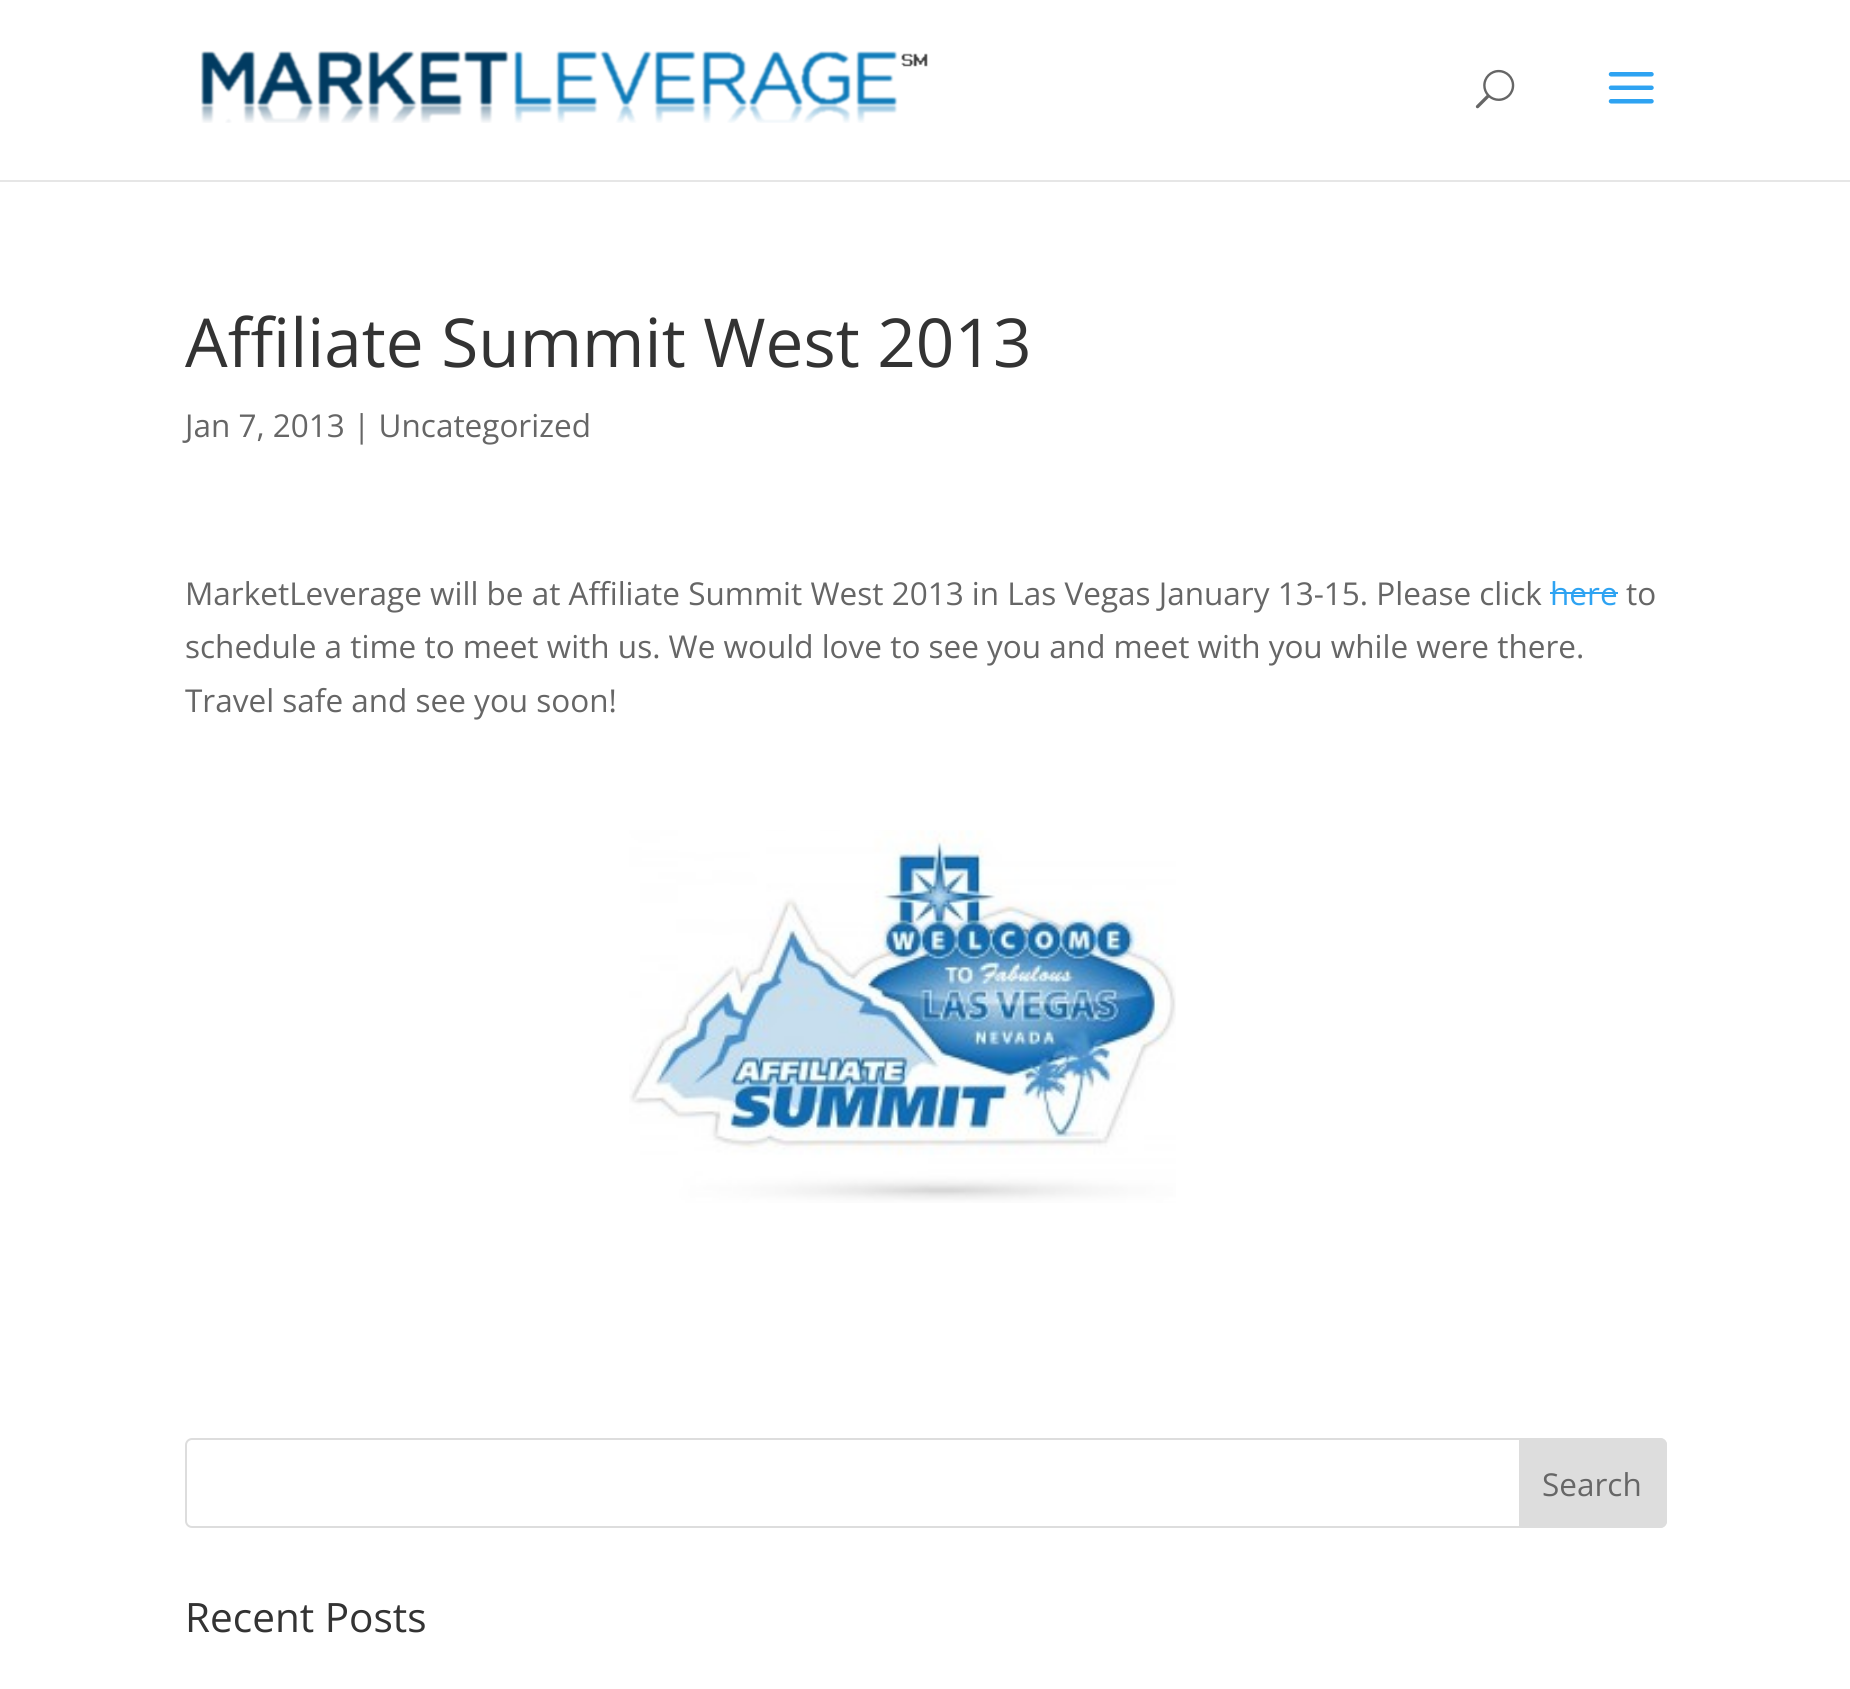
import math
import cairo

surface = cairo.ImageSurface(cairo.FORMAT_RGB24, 1850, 1689)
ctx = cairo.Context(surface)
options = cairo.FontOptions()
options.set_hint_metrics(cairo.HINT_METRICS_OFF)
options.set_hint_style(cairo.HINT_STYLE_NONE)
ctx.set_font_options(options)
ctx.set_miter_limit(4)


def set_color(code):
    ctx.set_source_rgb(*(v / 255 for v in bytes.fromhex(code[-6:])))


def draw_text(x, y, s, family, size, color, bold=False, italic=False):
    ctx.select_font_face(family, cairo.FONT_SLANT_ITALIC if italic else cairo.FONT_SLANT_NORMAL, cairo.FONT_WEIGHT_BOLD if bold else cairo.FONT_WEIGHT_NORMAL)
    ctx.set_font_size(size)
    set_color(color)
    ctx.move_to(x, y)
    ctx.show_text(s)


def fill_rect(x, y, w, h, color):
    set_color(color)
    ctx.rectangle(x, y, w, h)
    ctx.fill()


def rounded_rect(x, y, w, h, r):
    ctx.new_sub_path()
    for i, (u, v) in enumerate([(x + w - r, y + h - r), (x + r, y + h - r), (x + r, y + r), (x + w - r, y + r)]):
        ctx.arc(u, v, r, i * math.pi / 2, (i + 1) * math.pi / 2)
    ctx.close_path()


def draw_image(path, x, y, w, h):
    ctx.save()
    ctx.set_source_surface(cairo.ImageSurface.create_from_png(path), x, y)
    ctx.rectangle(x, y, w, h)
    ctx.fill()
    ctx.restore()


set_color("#ffffff")
ctx.paint()
set_color("#e6e6e6")
ctx.new_path()
ctx.move_to(0, 180)
ctx.line_to(0, 182)
ctx.line_to(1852, 182)
ctx.line_to(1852, 2)
ctx.line_to(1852, 180)
ctx.close_path()
ctx.fill()
draw_image("assets/img1.png", 201, 51, 727, 72)
draw_image("assets/img2.png", 1475, 69, 40, 40)
draw_image("assets/img3.png", 1608, 72, 46, 32)
draw_text(185, 367, "Affiliate Summit West 2013", "Open Sans", 67.5, "#333333")
draw_text(185, 437, "Jan 7, 2013 | Uncategorized", "Open Sans", 31.5, "#666666")
draw_text(185, 605, "MarketLeverage will be at Affiliate Summit West 2013 in Las Vegas January 13-15. Please click", "Open Sans", 31.5, "#666666")
draw_text(1550, 605, "here", "Open Sans", 31.5, "#2ea3f2")
fill_rect(1550, 592, 68, 2, "#2ea3f2")
draw_text(1626, 605, "to", "Open Sans", 31.5, "#666666")
draw_text(185, 658, "schedule a time to meet with us. We would love to see you and meet with you while were there.", "Open Sans", 31.5, "#666666")
draw_text(185, 712, "Travel safe and see you soon!", "Open Sans", 31.5, "#666666")
draw_image("assets/img4.png", 629, 830, 547, 373)
rounded_rect(186, 1439, 1480, 88, 6)
set_color("#dddddd")
ctx.stroke()
ctx.new_path()
ctx.move_to(1520, 1439)
ctx.line_to(1660, 1439)
ctx.curve_to(1663.5, 1439, 1666, 1441.5, 1666, 1445)
ctx.line_to(1666, 1521)
ctx.curve_to(1666, 1524.5, 1663.5, 1527, 1660, 1527)
ctx.line_to(1520, 1527)
ctx.close_path()
ctx.fill_preserve()
ctx.stroke()
draw_text(1542, 1496, "Search", "Open Sans", 31.5, "#666666")
draw_text(185, 1632, "Recent Posts", "Open Sans", 40.5, "#333333")
surface.write_to_png("output.png")
